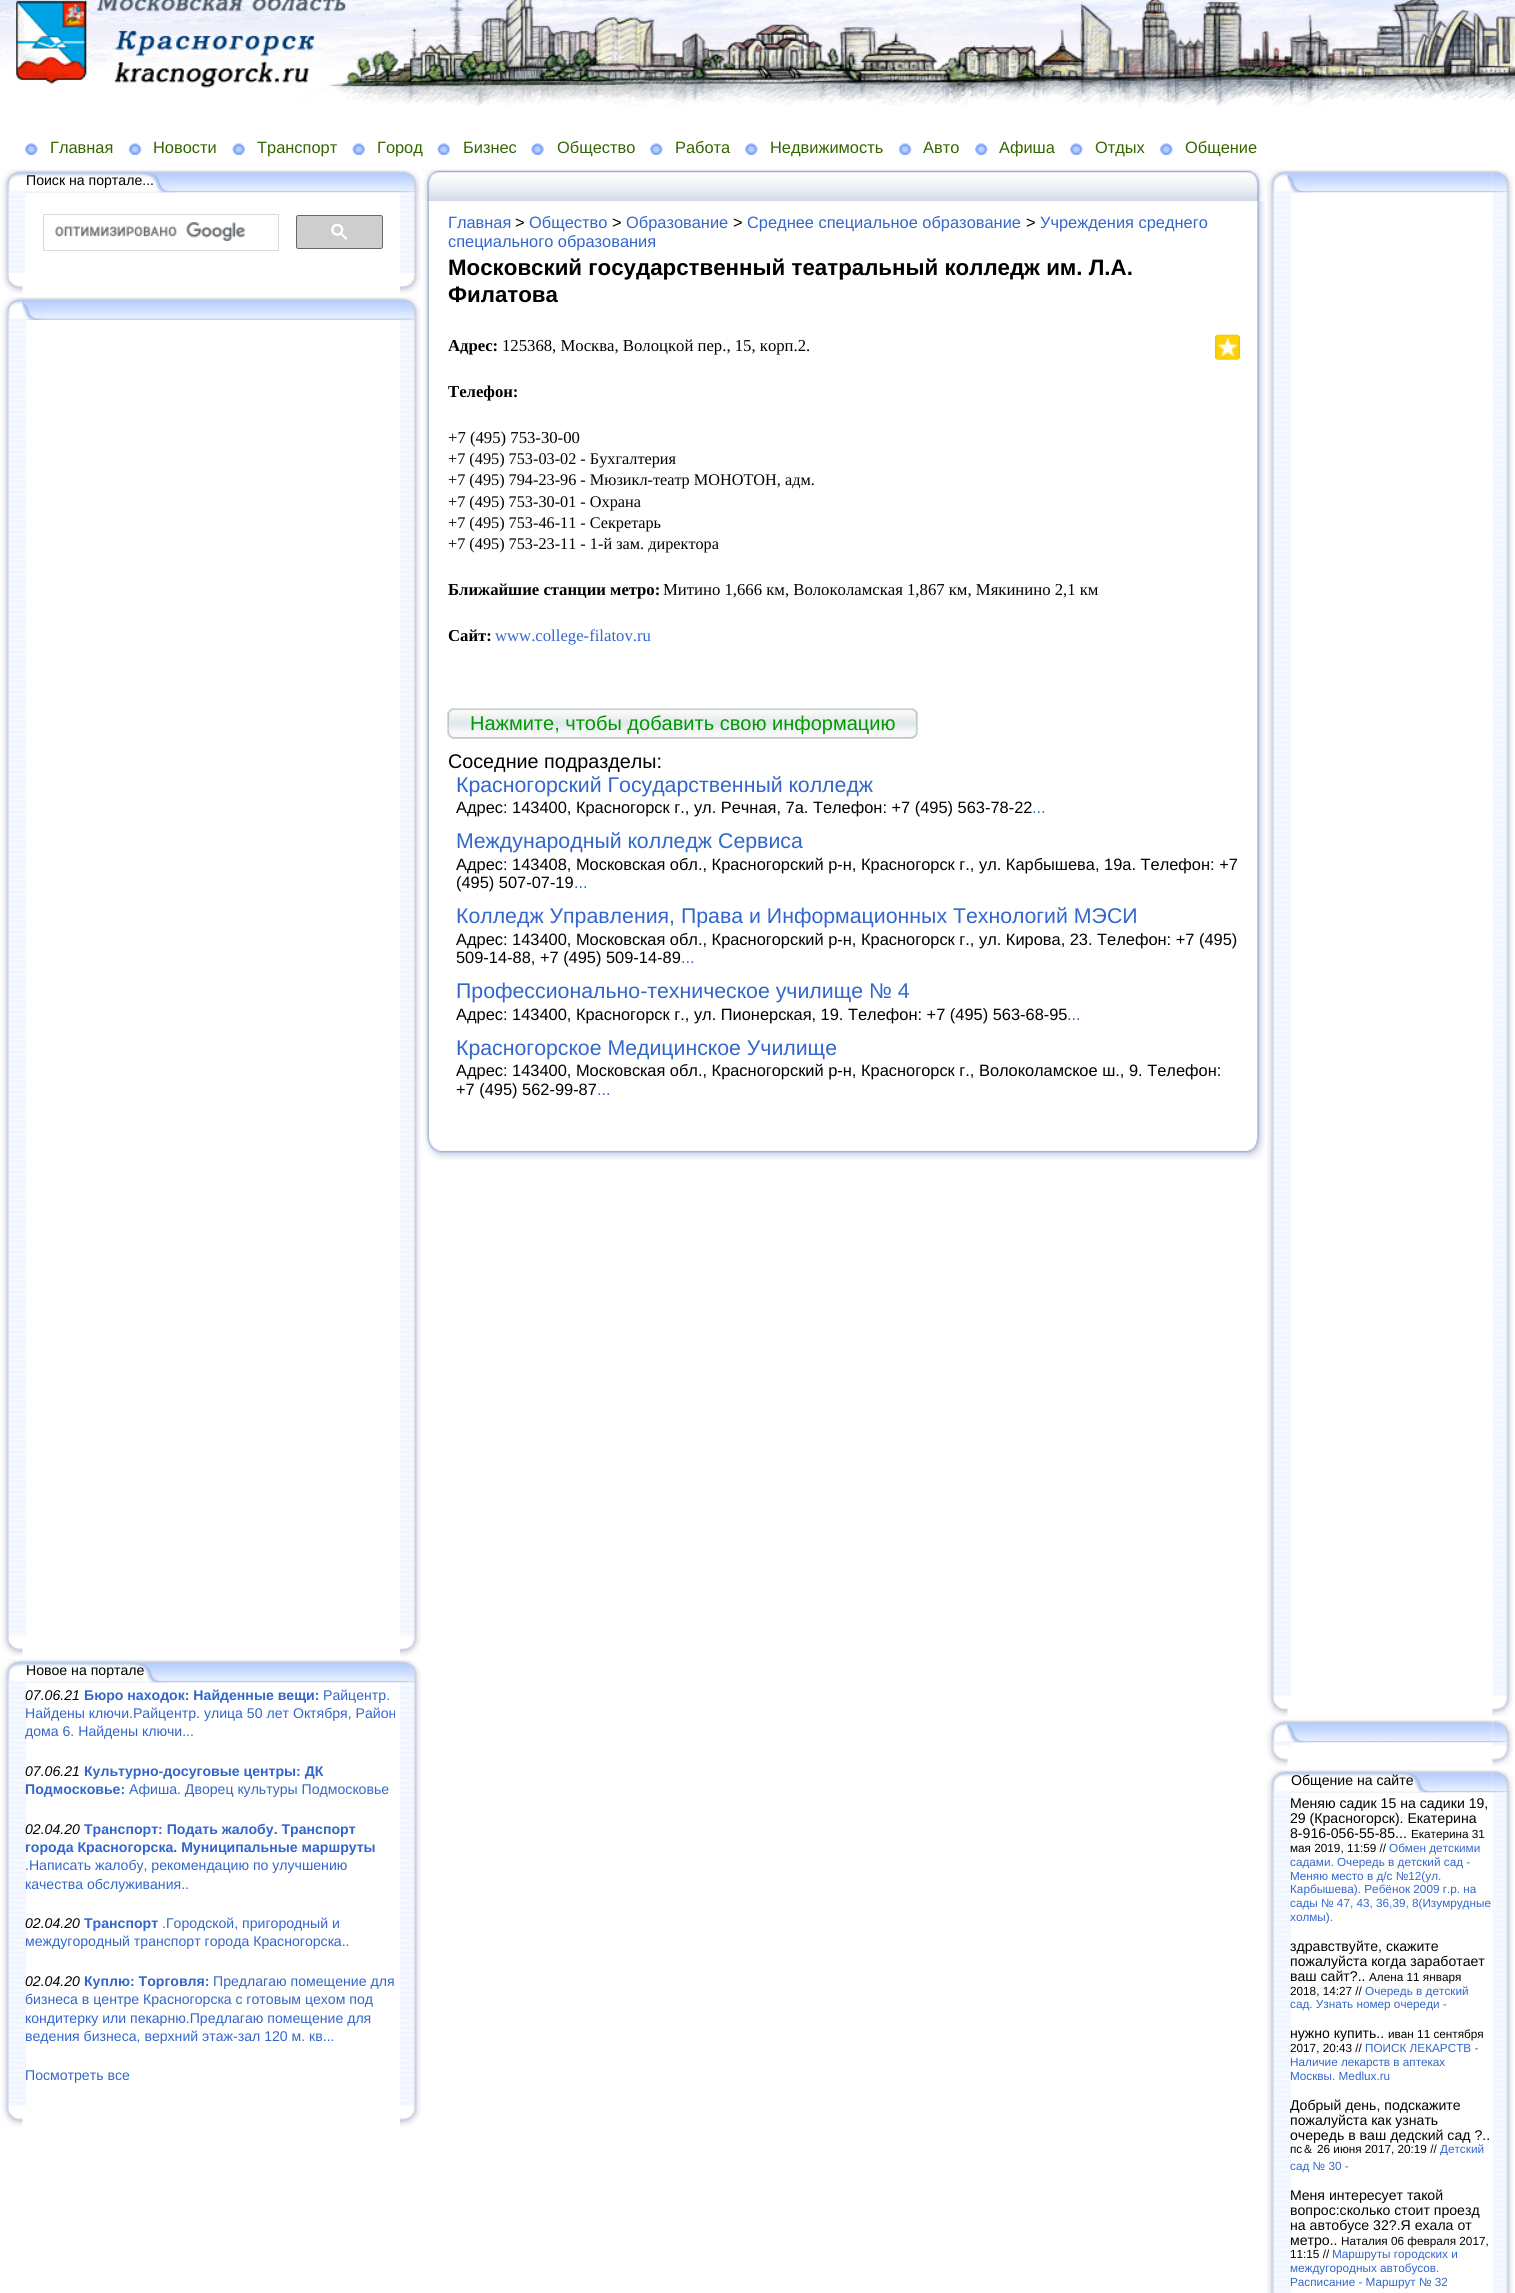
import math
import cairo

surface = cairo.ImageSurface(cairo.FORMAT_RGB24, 1515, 2293)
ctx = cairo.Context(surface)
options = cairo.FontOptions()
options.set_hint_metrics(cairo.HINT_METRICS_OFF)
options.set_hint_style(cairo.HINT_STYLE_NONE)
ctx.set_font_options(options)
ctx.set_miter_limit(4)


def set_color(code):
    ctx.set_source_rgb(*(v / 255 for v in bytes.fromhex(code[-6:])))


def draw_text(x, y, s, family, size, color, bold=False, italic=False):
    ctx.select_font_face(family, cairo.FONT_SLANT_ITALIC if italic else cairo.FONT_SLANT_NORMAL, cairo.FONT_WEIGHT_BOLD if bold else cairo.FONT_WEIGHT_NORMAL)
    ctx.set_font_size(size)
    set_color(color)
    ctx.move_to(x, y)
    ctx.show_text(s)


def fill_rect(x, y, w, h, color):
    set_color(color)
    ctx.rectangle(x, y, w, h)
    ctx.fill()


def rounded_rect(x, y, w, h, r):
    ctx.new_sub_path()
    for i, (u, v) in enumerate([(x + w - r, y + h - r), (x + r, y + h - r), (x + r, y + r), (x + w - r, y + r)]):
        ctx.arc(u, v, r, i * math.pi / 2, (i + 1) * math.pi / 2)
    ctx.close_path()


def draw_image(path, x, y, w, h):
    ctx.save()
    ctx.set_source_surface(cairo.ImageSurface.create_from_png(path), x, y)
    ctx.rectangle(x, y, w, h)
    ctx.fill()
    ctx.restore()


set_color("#ffffff")
ctx.paint()
draw_image("assets/img1.png", 0, 0, 1515, 106)
draw_image("assets/img2.png", 25, 143, 13, 12)
draw_text(50, 153, "Главная", "Liberation Sans", 16.4, "#336600")
draw_image("assets/img3.png", 128, 143, 14, 12)
draw_text(153, 153, "Новости", "Liberation Sans", 16.4, "#336600")
draw_image("assets/img4.png", 232, 143, 13, 12)
draw_text(257, 153, "Транспорт", "Liberation Sans", 16.4, "#336600")
draw_image("assets/img5.png", 352, 143, 13, 12)
draw_text(377, 153, "Город", "Liberation Sans", 16.4, "#336600")
draw_image("assets/img4.png", 437, 143, 13, 12)
draw_text(463, 153, "Бизнес", "Liberation Sans", 16.4, "#336600")
draw_image("assets/img6.png", 531, 143, 13, 12)
draw_text(557, 153, "Общество", "Liberation Sans", 16.4, "#336600")
draw_image("assets/img7.png", 650, 143, 13, 12)
draw_text(675, 153, "Работа", "Liberation Sans", 16.4, "#336600")
draw_image("assets/img2.png", 745, 143, 13, 12)
draw_text(770, 153, "Недвижимость", "Liberation Sans", 16.4, "#336600")
draw_image("assets/img3.png", 898, 143, 14, 12)
draw_text(923, 153, "Авто", "Liberation Sans", 16.4, "#336600")
draw_image("assets/img2.png", 975, 143, 13, 12)
draw_text(999, 153, "Афиша", "Liberation Sans", 16.4, "#336600")
draw_image("assets/img7.png", 1070, 143, 13, 12)
draw_text(1095, 153, "Отдых", "Liberation Sans", 16.4, "#336600")
draw_image("assets/img2.png", 1160, 143, 13, 12)
draw_text(1185, 153, "Общение", "Liberation Sans", 16.4, "#336600")
draw_image("assets/img8.png", 0, 169, 400, 24)
draw_image("assets/img9.png", 0, 172, 176, 21)
draw_image("assets/img10.png", 0, 170, 19, 22)
draw_text(26, 185, "Поиск на портале...", "Liberation Sans", 14.1, "#000000")
draw_image("assets/img15.png", 400, 192, 21, 82)
draw_image("assets/img31.png", 422, 169, 843, 32)
draw_image("assets/img11.png", 400, 170, 23, 23)
draw_image("assets/img12.png", 0, 192, 27, 82)
fill_rect(25, 196, 2, 78, "#ffffff")
ctx.rectangle(43.5, 214.5, 235, 36)
set_color("#d9d9d9")
ctx.set_line_width(1)
ctx.stroke()
draw_image("assets/img13.png", 55, 222, 190, 19)
set_color("#cecece")
rounded_rect(296.5, 215.5, 86, 33, 2)
ctx.fill_preserve()
set_color("#666666")
ctx.stroke()
draw_image("assets/img14.png", 331, 224, 17, 16)
draw_image("assets/img16.png", 2, 273, 21, 21)
draw_image("assets/img17.png", 400, 273, 21, 21)
draw_image("assets/img18.png", 0, 297, 400, 23)
draw_image("assets/img19.png", 0, 300, 45, 20)
draw_image("assets/img22.png", 0, 319, 27, 1317)
draw_image("assets/img20.png", 0, 297, 23, 23)
draw_image("assets/img23.png", 400, 319, 21, 1317)
draw_image("assets/img21.png", 400, 297, 21, 23)
draw_image("assets/img24.png", 2, 1636, 21, 21)
draw_image("assets/img25.png", 400, 1636, 21, 21)
draw_image("assets/img26.png", 0, 1659, 400, 24)
draw_image("assets/img27.png", 0, 1662, 168, 21)
draw_image("assets/img10.png", 0, 1660, 19, 22)
draw_text(26, 1675, "Новое на портале", "Liberation Sans", 14.1, "#000000")
draw_image("assets/img30.png", 400, 1682, 21, 424)
draw_image("assets/img28.png", 400, 1660, 21, 23)
draw_image("assets/img29.png", 0, 1682, 27, 424)
draw_text(25, 1700, "07.06.21", "Liberation Sans", 14.1, "#000000", italic=True)
draw_text(84, 1700, "Бюро находок: Найденные вещи:", "Liberation Sans", 14.1, "#3366cc", bold=True)
draw_text(323, 1700, "Райцентр.", "Liberation Sans", 14.1, "#3366cc")
draw_text(25, 1718, "Найдены ключи.Райцентр. улица 50 лет Октября, Район", "Liberation Sans", 14.1, "#3366cc")
draw_text(25, 1736, "дома 6. Найдены ключи...", "Liberation Sans", 14.1, "#3366cc")
draw_text(25, 1776, "07.06.21", "Liberation Sans", 14.1, "#000000", italic=True)
draw_text(84, 1776, "Культурно-досуговые центры: ДК", "Liberation Sans", 14.1, "#3366cc", bold=True)
draw_text(25, 1794, "Подмосковье:", "Liberation Sans", 14.1, "#3366cc", bold=True)
draw_text(129, 1794, "Афиша. Дворец культуры Подмосковье", "Liberation Sans", 14.1, "#3366cc")
draw_text(25, 1834, "02.04.20", "Liberation Sans", 14.1, "#000000", italic=True)
draw_text(84, 1834, "Транспорт: Подать жалобу. Транспорт", "Liberation Sans", 14.1, "#3366cc", bold=True)
draw_text(25, 1852, "города Красногорска. Муниципальные маршруты", "Liberation Sans", 14.1, "#3366cc", bold=True)
draw_text(25, 1870, ".Написать жалобу, рекомендацию по улучшению", "Liberation Sans", 14.1, "#3366cc")
draw_text(25, 1889, "качества обслуживания..", "Liberation Sans", 14.1, "#3366cc")
draw_text(25, 1928, "02.04.20", "Liberation Sans", 14.1, "#000000", italic=True)
draw_text(84, 1928, "Транспорт", "Liberation Sans", 14.1, "#3366cc", bold=True)
draw_text(162, 1928, ".Городской, пригородный и", "Liberation Sans", 14.1, "#3366cc")
draw_text(25, 1946, "междугородный транспорт города Красногорска..", "Liberation Sans", 14.1, "#3366cc")
draw_text(25, 1986, "02.04.20", "Liberation Sans", 14.1, "#000000", italic=True)
draw_text(84, 1986, "Куплю: Торговля:", "Liberation Sans", 14.1, "#3366cc", bold=True)
draw_text(213, 1986, "Предлагаю помещение для", "Liberation Sans", 14.1, "#3366cc")
draw_text(25, 2004, "бизнеса в центре Красногорска с готовым цехом под", "Liberation Sans", 14.1, "#3366cc")
draw_text(25, 2023, "кондитерку или пекарню.Предлагаю помещение для", "Liberation Sans", 14.1, "#3366cc")
draw_text(25, 2041, "ведения бизнеса, верхний этаж-зал 120 м. кв...", "Liberation Sans", 14.1, "#3366cc")
draw_text(25, 2080, "Посмотреть все", "Liberation Sans", 14.1, "#3366cc")
draw_image("assets/img24.png", 2, 2106, 21, 21)
draw_image("assets/img25.png", 400, 2106, 21, 21)
draw_image("assets/img32.png", 1244, 169, 21, 32)
draw_image("assets/img33.png", 422, 169, 20, 32)
draw_image("assets/img34.png", 423, 201, 6, 935)
draw_image("assets/img35.png", 1257, 201, 8, 935)
draw_text(448, 228, "Главная", "Liberation Sans", 16.4, "#3366cc")
draw_text(515, 228, ">", "Liberation Sans", 16.4, "#000000")
draw_text(529, 228, "Общество", "Liberation Sans", 16.4, "#3366cc")
draw_text(612, 228, ">", "Liberation Sans", 16.4, "#000000")
draw_text(626, 228, "Образование", "Liberation Sans", 16.4, "#3366cc")
draw_text(733, 228, ">", "Liberation Sans", 16.4, "#000000")
draw_text(747, 228, "Среднее специальное образование", "Liberation Sans", 16.4, "#3366cc")
draw_text(1026, 228, ">", "Liberation Sans", 16.4, "#000000")
draw_text(1040, 228, "Учреждения среднего", "Liberation Sans", 16.4, "#3366cc")
draw_text(448, 247, "специального образования", "Liberation Sans", 16.4, "#3366cc")
draw_text(448, 275, "Московский государственный театральный колледж им. Л.А.", "Liberation Sans", 22.3, "#000000", bold=True)
draw_text(448, 302, "Филатова", "Liberation Sans", 22.3, "#000000", bold=True)
draw_text(448, 351, "Адрес:", "Liberation Serif", 16.7, "#000000", bold=True)
draw_text(502, 351, "125368, Москва, Волоцкой пер., 15, корп.2.", "Liberation Serif", 16.7, "#000000")
draw_image("assets/img36.png", 1215, 334, 25, 26)
draw_text(448, 397, "Телефон:", "Liberation Serif", 16.7, "#000000", bold=True)
draw_text(448, 443, "+7 (495) 753-30-00", "Liberation Serif", 16.7, "#000000")
draw_text(448, 464, "+7 (495) 753-03-02 - Бухгалтерия", "Liberation Serif", 16.25, "#000000")
draw_text(448, 485, "+7 (495) 794-23-96 - Мюзикл-театр МОНОТОН, адм.", "Liberation Serif", 16.25, "#000000")
draw_text(448, 507, "+7 (495) 753-30-01 - Охрана", "Liberation Serif", 16.25, "#000000")
draw_text(448, 528, "+7 (495) 753-46-11 - Секретарь", "Liberation Serif", 16.25, "#000000")
draw_text(448, 549, "+7 (495) 753-23-11 - 1-й зам. директора", "Liberation Serif", 16.25, "#000000")
draw_text(448, 595, "Ближайшие станции метро:", "Liberation Serif", 16.7, "#000000", bold=True)
draw_text(663, 595, "Митино 1,666 км, Волоколамская 1,867 км, Мякинино 2,1 км", "Liberation Serif", 16.7, "#000000")
draw_text(448, 641, "Сайт:", "Liberation Serif", 16.7, "#000000", bold=True)
draw_text(495, 641, "www.college-filatov.ru", "Liberation Serif", 16.7, "#3366cc")
draw_image("assets/img37.png", 895, 708, 23, 31)
draw_image("assets/img38.png", 447, 708, 448, 31)
draw_text(470, 730, "Нажмите, чтобы добавить свою информацию", "Liberation Sans", 20, "#009900")
draw_text(448, 768, "Соседние подразделы:", "Liberation Sans", 19.75, "#000000")
draw_text(456, 792, "Красногорский Государственный колледж", "Liberation Sans", 21.3, "#3366cc")
draw_text(456, 813, "Адрес: 143400, Красногорск г., ул. Речная, 7а. Телефон: +7 (495) 563-78-22", "Liberation Sans", 16.4, "#000000")
draw_text(1032, 813, "...", "Liberation Sans", 16.4, "#3366cc")
draw_text(456, 848, "Международный колледж Сервиса", "Liberation Sans", 21.3, "#3366cc")
draw_text(456, 870, "Адрес: 143408, Московская обл., Красногорский р-н, Красногорск г., ул. Карбышева, 19а. Телефон: +7", "Liberation Sans", 16.4, "#000000")
draw_text(456, 888, "(495) 507-07-19", "Liberation Sans", 16.4, "#000000")
draw_text(574, 888, "...", "Liberation Sans", 16.4, "#3366cc")
draw_text(456, 923, "Колледж Управления, Права и Информационных Технологий МЭСИ", "Liberation Sans", 21.3, "#3366cc")
draw_text(456, 945, "Адрес: 143400, Московская обл., Красногорский р-н, Красногорск г., ул. Кирова, 23. Телефон: +7 (495)", "Liberation Sans", 16.4, "#000000")
draw_text(456, 963, "509-14-88, +7 (495) 509-14-89", "Liberation Sans", 16.4, "#000000")
draw_text(681, 963, "...", "Liberation Sans", 16.4, "#3366cc")
draw_text(456, 998, "Профессионально-техническое училище № 4", "Liberation Sans", 21.3, "#3366cc")
draw_text(456, 1020, "Адрес: 143400, Красногорск г., ул. Пионерская, 19. Телефон: +7 (495) 563-68-95", "Liberation Sans", 16.4, "#000000")
draw_text(1067, 1020, "...", "Liberation Sans", 16.4, "#3366cc")
draw_text(456, 1055, "Красногорское Медицинское Училище", "Liberation Sans", 21.3, "#3366cc")
draw_text(456, 1076, "Адрес: 143400, Московская обл., Красногорский р-н, Красногорск г., Волоколамское ш., 9. Телефон:", "Liberation Sans", 16.4, "#000000")
draw_text(456, 1095, "+7 (495) 562-99-87", "Liberation Sans", 16.4, "#000000")
draw_text(597, 1095, "...", "Liberation Sans", 16.4, "#3366cc")
draw_image("assets/img39.png", 422, 1150, 843, 10)
draw_image("assets/img40.png", 1246, 1136, 19, 24)
draw_image("assets/img41.png", 422, 1136, 19, 24)
draw_image("assets/img42.png", 1265, 169, 228, 24)
draw_image("assets/img43.png", 1265, 172, 45, 21)
draw_image("assets/img44.png", 1265, 170, 23, 22)
draw_image("assets/img47.png", 1492, 192, 21, 1504)
draw_image("assets/img45.png", 1492, 170, 21, 23)
draw_image("assets/img46.png", 1265, 192, 27, 1504)
draw_image("assets/img24.png", 1267, 1696, 21, 21)
draw_image("assets/img48.png", 1492, 1696, 21, 21)
draw_image("assets/img49.png", 1265, 1719, 228, 24)
draw_image("assets/img43.png", 1265, 1722, 45, 21)
draw_image("assets/img50.png", 1265, 1720, 23, 22)
draw_image("assets/img53.png", 1492, 1742, 21, 4)
draw_image("assets/img51.png", 1492, 1720, 21, 23)
draw_image("assets/img52.png", 1265, 1742, 26, 4)
draw_image("assets/img24.png", 1267, 1746, 21, 21)
draw_image("assets/img48.png", 1492, 1746, 21, 21)
draw_image("assets/img49.png", 1265, 1769, 228, 24)
draw_image("assets/img54.png", 1265, 1772, 171, 21)
draw_image("assets/img10.png", 1265, 1770, 19, 22)
draw_text(1291, 1785, "Общение на сайте", "Liberation Sans", 14.1, "#000000")
draw_image("assets/img57.png", 1492, 1792, 21, 501)
draw_image("assets/img55.png", 1492, 1770, 21, 23)
draw_image("assets/img56.png", 1265, 1792, 27, 501)
draw_text(1290, 1808, "Меняю садик 15 на садики 19,", "Liberation Sans", 14.1, "#000000")
draw_text(1290, 1823, "29 (Красногорск). Екатерина", "Liberation Sans", 14.1, "#000000")
draw_text(1290, 1838, "8-916-056-55-85...", "Liberation Sans", 14.1, "#000000")
draw_text(1411, 1838, "Екатерина 31", "Liberation Sans", 11.75, "#000000")
draw_text(1290, 1852, "мая 2019, 11:59 //", "Liberation Sans", 11.75, "#000000")
draw_text(1389, 1852, "Обмен детскими", "Liberation Sans", 11.75, "#3366cc")
draw_text(1290, 1866, "садами. Очередь в детский сад -", "Liberation Sans", 11.75, "#3366cc")
draw_text(1290, 1880, "Меняю место в д/с №12(ул.", "Liberation Sans", 11.75, "#3366cc")
draw_text(1290, 1893, "Карбышева). Ребёнок 2009 г.р. на", "Liberation Sans", 11.75, "#3366cc")
draw_text(1290, 1907, "сады № 47, 43, 36,39, 8(Изумрудные", "Liberation Sans", 11.75, "#3366cc")
draw_text(1290, 1921, "холмы).", "Liberation Sans", 11.75, "#3366cc")
draw_text(1290, 1951, "здравствуйте, скажите", "Liberation Sans", 14.1, "#000000")
draw_text(1290, 1966, "пожалуйста когда заработает", "Liberation Sans", 14.1, "#000000")
draw_text(1290, 1981, "ваш сайт?..", "Liberation Sans", 14.1, "#000000")
draw_text(1369, 1981, "Алена 11 января", "Liberation Sans", 11.75, "#000000")
draw_text(1290, 1995, "2018, 14:27 //", "Liberation Sans", 11.75, "#000000")
draw_text(1365, 1995, "Очередь в детский", "Liberation Sans", 11.75, "#3366cc")
draw_text(1290, 2008, "сад. Узнать номер очереди -", "Liberation Sans", 11.75, "#3366cc")
draw_text(1290, 2038, "нужно купить..", "Liberation Sans", 14.1, "#000000")
draw_text(1388, 2038, "иван 11 сентября", "Liberation Sans", 11.75, "#000000")
draw_text(1290, 2052, "2017, 20:43 //", "Liberation Sans", 11.75, "#000000")
draw_text(1365, 2052, "ПОИСК ЛЕКАРСТВ -", "Liberation Sans", 11.75, "#3366cc")
draw_text(1290, 2066, "Наличие лекарств в аптеках", "Liberation Sans", 11.75, "#3366cc")
draw_text(1290, 2080, "Москвы. Medlux.ru", "Liberation Sans", 11.75, "#3366cc")
draw_text(1290, 2110, "Добрый день, подскажите", "Liberation Sans", 14.1, "#000000")
draw_text(1290, 2125, "пожалуйста как узнать", "Liberation Sans", 14.1, "#000000")
draw_text(1290, 2140, "очередь в ваш дедский сад ?..", "Liberation Sans", 14.1, "#000000")
draw_text(1290, 2153, "пс", "Liberation Sans", 11.75, "#000000")
draw_text(1302, 2153, "＆", "WenQuanYi Zen Hei Medium", 11.75, "#000000")
draw_text(1317, 2153, "26 июня 2017, 20:19 //", "Liberation Sans", 11.75, "#000000")
draw_text(1440, 2153, "Детский", "Liberation Sans", 11.75, "#3366cc")
draw_text(1290, 2170, "сад № 30 -", "Liberation Sans", 11.75, "#3366cc")
draw_text(1290, 2200, "Меня интересует такой", "Liberation Sans", 14.1, "#000000")
draw_text(1290, 2215, "вопрос:сколько стоит проезд", "Liberation Sans", 14.1, "#000000")
draw_text(1290, 2230, "на автобусе 32?.Я ехала от", "Liberation Sans", 14.1, "#000000")
draw_text(1290, 2245, "метро..", "Liberation Sans", 14.1, "#000000")
draw_text(1341, 2245, "Наталия 06 февраля 2017,", "Liberation Sans", 11.75, "#000000")
draw_text(1290, 2258, "11:15 //", "Liberation Sans", 11.75, "#000000")
draw_text(1332, 2258, "Маршруты городских и", "Liberation Sans", 11.75, "#3366cc")
draw_text(1290, 2272, "междугородных автобусов.", "Liberation Sans", 11.75, "#3366cc")
draw_text(1290, 2286, "Расписание - Маршрут № 32", "Liberation Sans", 11.75, "#3366cc")
surface.write_to_png("output.png")
